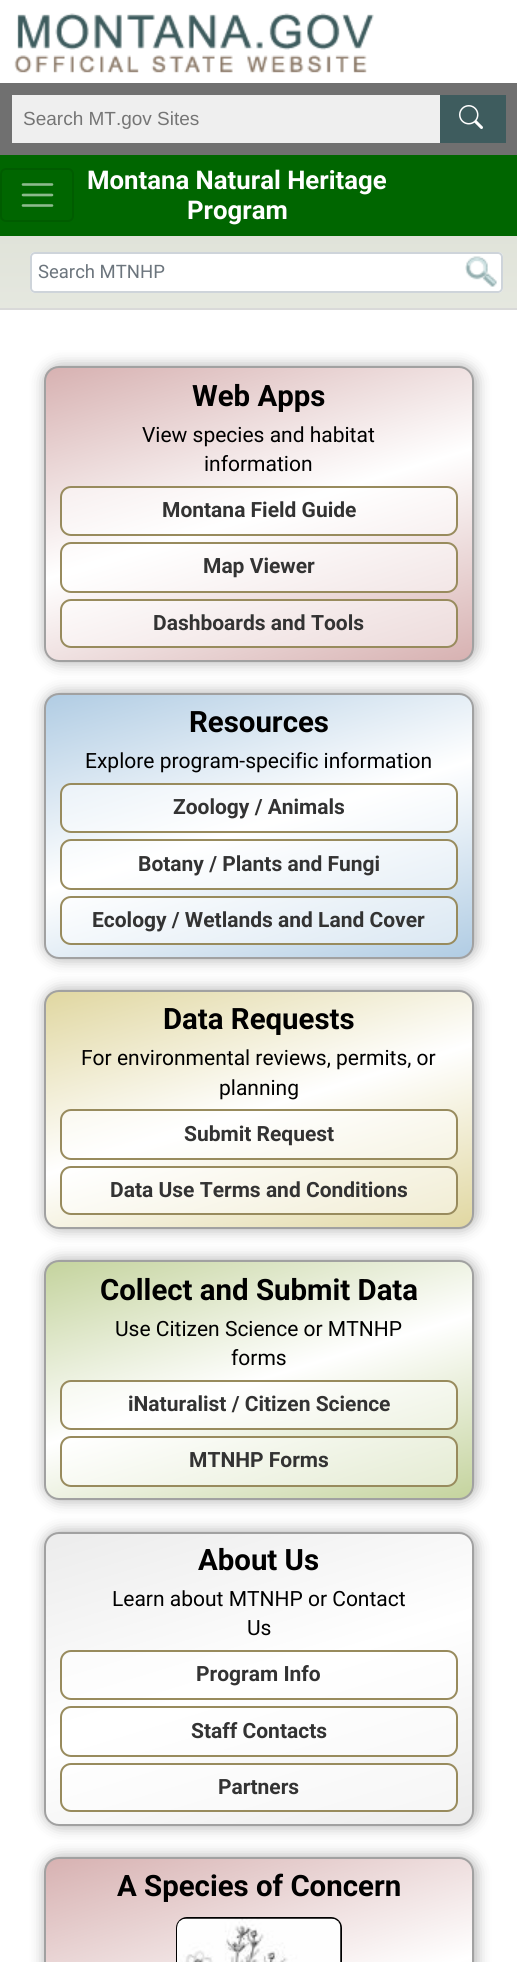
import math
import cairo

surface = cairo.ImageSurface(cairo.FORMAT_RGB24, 517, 1962)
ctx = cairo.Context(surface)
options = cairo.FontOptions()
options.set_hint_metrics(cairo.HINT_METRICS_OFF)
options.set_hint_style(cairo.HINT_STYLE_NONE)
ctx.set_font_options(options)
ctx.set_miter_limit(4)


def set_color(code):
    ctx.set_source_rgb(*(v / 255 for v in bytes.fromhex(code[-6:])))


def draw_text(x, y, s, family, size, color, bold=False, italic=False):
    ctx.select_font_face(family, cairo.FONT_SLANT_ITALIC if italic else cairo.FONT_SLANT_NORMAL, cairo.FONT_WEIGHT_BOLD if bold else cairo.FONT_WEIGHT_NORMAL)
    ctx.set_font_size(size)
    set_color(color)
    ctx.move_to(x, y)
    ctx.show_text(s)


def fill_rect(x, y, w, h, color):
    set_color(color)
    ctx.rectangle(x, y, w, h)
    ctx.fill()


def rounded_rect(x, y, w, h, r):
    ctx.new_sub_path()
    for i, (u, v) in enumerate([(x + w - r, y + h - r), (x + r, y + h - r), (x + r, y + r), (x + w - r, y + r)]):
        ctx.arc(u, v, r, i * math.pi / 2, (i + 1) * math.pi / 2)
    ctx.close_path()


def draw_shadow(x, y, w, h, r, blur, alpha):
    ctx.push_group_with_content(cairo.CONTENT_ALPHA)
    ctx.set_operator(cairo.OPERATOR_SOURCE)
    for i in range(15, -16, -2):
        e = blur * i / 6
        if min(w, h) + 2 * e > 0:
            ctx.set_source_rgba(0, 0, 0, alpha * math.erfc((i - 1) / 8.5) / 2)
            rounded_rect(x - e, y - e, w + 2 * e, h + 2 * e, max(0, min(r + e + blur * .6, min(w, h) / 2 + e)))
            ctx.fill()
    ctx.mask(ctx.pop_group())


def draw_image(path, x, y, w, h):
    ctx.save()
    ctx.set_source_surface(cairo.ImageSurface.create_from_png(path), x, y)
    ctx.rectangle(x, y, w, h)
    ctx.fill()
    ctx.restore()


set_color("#ffffff")
ctx.paint()
draw_image("assets/img1.png", 14, 13, 360, 60)
ctx.rectangle(6, 89, 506, 60)
set_color("#707070")
ctx.set_line_width(12)
ctx.stroke()
fill_rect(12, 95, 428, 48, "#efefef")
draw_text(23, 125, "Search MT.gov Sites", "Liberation Sans", 19, "#757575")
fill_rect(440, 95, 66, 48, "#3e5c5e")
draw_image("assets/img2.png", 459, 105, 24, 24)
fill_rect(0, 155, 517, 81, "#006600")
rounded_rect(1, 169, 72, 52, 5)
set_color("#005c00")
ctx.set_line_width(2)
ctx.stroke()
ctx.new_path()
ctx.move_to(23, 184.5)
ctx.line_to(52, 184.5)
ctx.move_to(23, 195)
ctx.line_to(52, 195)
ctx.move_to(23, 205.5)
ctx.line_to(52, 205.5)
set_color("#8cba8c")
ctx.set_line_width(2.6)
ctx.set_line_cap(cairo.LINE_CAP_ROUND)
ctx.stroke()
draw_text(87, 189, "Montana Natural Heritage", "Roboto", 25.75, "#ffffff", bold=True)
draw_text(187, 219, "Program", "Roboto", 25.75, "#ffffff", bold=True)
gradient = cairo.LinearGradient(259, 235, 259, 686)
gradient.add_color_stop_rgba(0, 0.878, 0.89, 0.851, 1)
gradient.add_color_stop_rgba(1, 1, 1, 1, 1)
ctx.set_source(gradient)
ctx.rectangle(0, 236, 517, 72)
ctx.fill()
fill_rect(0, 308, 517, 2, "#d9d9d9")
set_color("#ffffff")
rounded_rect(30, 252, 473, 41, 5)
ctx.fill()
draw_image("assets/img3.png", 465, 256, 32, 31)
rounded_rect(31, 253, 471, 39, 4)
set_color("#ced4da")
ctx.set_line_width(2)
ctx.set_line_cap(cairo.LINE_CAP_BUTT)
ctx.stroke()
draw_text(38, 278, "Search MTNHP", "Roboto", 18.5, "#6c757d")
set_color("#000000")
draw_shadow(45, 366, 431, 296, 15, 7.5, 0.33)
ctx.save()
rounded_rect(44, 366, 430, 296, 15)
ctx.clip()
gradient = cairo.LinearGradient(413, 1017, 105, 11)
gradient.add_color_stop_rgba(0, 0.592, 0.208, 0.208, 1)
gradient.add_color_stop_rgba(0.5, 1, 1, 1, 1)
gradient.add_color_stop_rgba(1, 0.592, 0.208, 0.208, 1)
ctx.set_source(gradient)
ctx.rectangle(45, 368, 428, 292)
ctx.fill()
ctx.restore()
rounded_rect(45, 367, 428, 294, 14)
set_color("#a1a1a1")
ctx.stroke()
draw_text(192, 406, "Web Apps", "Roboto", 29.4, "#000000", bold=True)
draw_text(142, 442, "View species and habitat", "Roboto", 21, "#000000")
draw_text(204, 471, "information", "Roboto", 21, "#000000")
ctx.set_source_rgba(1, 1, 1, 0.5)
rounded_rect(61, 487, 396, 48, 10)
ctx.fill_preserve()
set_color("#988b5d")
ctx.stroke()
draw_text(162, 517, "Montana Field Guide", "Roboto", 21, "#333333", bold=True)
ctx.set_source_rgba(1, 1, 1, 0.5)
rounded_rect(61, 543, 396, 49, 10)
ctx.fill_preserve()
set_color("#988b5d")
ctx.stroke()
draw_text(203, 573, "Map Viewer", "Roboto", 21, "#333333", bold=True)
ctx.set_source_rgba(1, 1, 1, 0.5)
rounded_rect(61, 600, 396, 47, 10)
ctx.fill_preserve()
set_color("#988b5d")
ctx.stroke()
draw_text(153, 630, "Dashboards and Tools", "Roboto", 21, "#333333", bold=True)
set_color("#000000")
draw_shadow(45, 693, 431, 266, 15, 7.5, 0.33)
ctx.save()
rounded_rect(44, 693, 430, 266, 15)
ctx.clip()
gradient = cairo.LinearGradient(402, 1293, 116, 358)
gradient.add_color_stop_rgba(0, 0.2, 0.482, 0.718, 1)
gradient.add_color_stop_rgba(0.5, 1, 1, 1, 1)
gradient.add_color_stop_rgba(1, 0.2, 0.482, 0.718, 1)
ctx.set_source(gradient)
ctx.rectangle(45, 695, 428, 262)
ctx.fill()
ctx.restore()
rounded_rect(45, 694, 428, 264, 14)
set_color("#a1a1a1")
ctx.stroke()
draw_text(189, 732, "Resources", "Roboto", 29.4, "#000000", bold=True)
draw_text(85, 768, "Explore program-specific information", "Roboto", 21, "#000000")
ctx.set_source_rgba(1, 1, 1, 0.5)
rounded_rect(61, 784, 396, 48, 10)
ctx.fill_preserve()
set_color("#988b5d")
ctx.stroke()
draw_text(173, 814, "Zoology / Animals", "Roboto", 21, "#333333", bold=True)
ctx.set_source_rgba(1, 1, 1, 0.5)
rounded_rect(61, 840, 396, 49, 10)
ctx.fill_preserve()
set_color("#988b5d")
ctx.stroke()
draw_text(138, 871, "Botany / Plants and Fungi", "Roboto", 21, "#333333", bold=True)
ctx.set_source_rgba(1, 1, 1, 0.5)
rounded_rect(61, 897, 396, 47, 10)
ctx.fill_preserve()
set_color("#988b5d")
ctx.stroke()
draw_text(92, 927, "Ecology / Wetlands and Land Cover", "Roboto", 21, "#333333", bold=True)
set_color("#000000")
draw_shadow(45, 990, 431, 239, 15, 7.5, 0.33)
ctx.save()
rounded_rect(44, 990, 430, 239, 15)
ctx.clip()
gradient = cairo.LinearGradient(392, 1545, 126, 674)
gradient.add_color_stop_rgba(0, 0.686, 0.592, 0.039, 1)
gradient.add_color_stop_rgba(0.5, 1, 1, 1, 1)
gradient.add_color_stop_rgba(1, 0.686, 0.592, 0.039, 1)
ctx.set_source(gradient)
ctx.rectangle(45, 992, 428, 235)
ctx.fill()
ctx.restore()
rounded_rect(45, 991, 428, 237, 14)
set_color("#a1a1a1")
ctx.stroke()
draw_text(163, 1029, "Data Requests", "Roboto", 29.4, "#000000", bold=True)
draw_text(81, 1065, "For environmental reviews, permits, or", "Roboto", 21, "#000000")
draw_text(219, 1095, "planning", "Roboto", 21, "#000000")
ctx.set_source_rgba(1, 1, 1, 0.5)
rounded_rect(61, 1110, 396, 49, 10)
ctx.fill_preserve()
set_color("#988b5d")
ctx.stroke()
draw_text(184, 1141, "Submit Request", "Roboto", 21, "#333333", bold=True)
ctx.set_source_rgba(1, 1, 1, 0.5)
rounded_rect(61, 1167, 396, 47, 10)
ctx.fill_preserve()
set_color("#988b5d")
ctx.stroke()
draw_text(110, 1197, "Data Use Terms and Conditions", "Roboto", 21, "#333333", bold=True)
set_color("#000000")
draw_shadow(45, 1260, 431, 240, 15, 7.5, 0.33)
ctx.save()
rounded_rect(44, 1260, 430, 240, 15)
ctx.clip()
gradient = cairo.LinearGradient(392, 1817, 125, 943)
gradient.add_color_stop_rgba(0, 0.4, 0.553, 0.004, 1)
gradient.add_color_stop_rgba(0.5, 1, 1, 1, 1)
gradient.add_color_stop_rgba(1, 0.4, 0.553, 0.004, 1)
ctx.set_source(gradient)
ctx.rectangle(45, 1262, 428, 237)
ctx.fill()
ctx.restore()
rounded_rect(45, 1261, 428, 238, 14)
set_color("#a1a1a1")
ctx.stroke()
draw_text(100, 1300, "Collect and Submit Data", "Roboto", 29.4, "#000000", bold=True)
draw_text(115, 1336, "Use Citizen Science or MTNHP", "Roboto", 21, "#000000")
draw_text(231, 1365, "forms", "Roboto", 21, "#000000")
ctx.set_source_rgba(1, 1, 1, 0.5)
rounded_rect(61, 1381, 396, 48, 10)
ctx.fill_preserve()
set_color("#988b5d")
ctx.stroke()
draw_text(128, 1411, "iNaturalist / Citizen Science", "Roboto", 21, "#333333", bold=True)
ctx.set_source_rgba(1, 1, 1, 0.5)
rounded_rect(61, 1437, 396, 49, 10)
ctx.fill_preserve()
set_color("#988b5d")
ctx.stroke()
draw_text(189, 1467, "MTNHP Forms", "Roboto", 21, "#333333", bold=True)
set_color("#000000")
draw_shadow(45, 1532, 431, 294, 15, 7.5, 0.33)
ctx.save()
rounded_rect(44, 1532, 430, 294, 15)
ctx.clip()
gradient = cairo.LinearGradient(412, 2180, 105, 1177)
gradient.add_color_stop_rgba(0, 0.804, 0.804, 0.804, 1)
gradient.add_color_stop_rgba(0.5, 1, 1, 1, 1)
gradient.add_color_stop_rgba(1, 0.804, 0.804, 0.804, 1)
ctx.set_source(gradient)
ctx.rectangle(45, 1533, 428, 291)
ctx.fill()
ctx.restore()
rounded_rect(45, 1533, 428, 292, 14)
set_color("#a1a1a1")
ctx.stroke()
draw_text(198, 1570, "About Us", "Roboto", 29.4, "#000000", bold=True)
draw_text(112, 1606, "Learn about MTNHP or Contact", "Roboto", 21, "#000000")
draw_text(247, 1635, "Us", "Roboto", 21, "#000000")
ctx.set_source_rgba(1, 1, 1, 0.5)
rounded_rect(61, 1651, 396, 48, 10)
ctx.fill_preserve()
set_color("#988b5d")
ctx.stroke()
draw_text(196, 1681, "Program Info", "Roboto", 21, "#333333", bold=True)
ctx.set_source_rgba(1, 1, 1, 0.5)
rounded_rect(61, 1707, 396, 49, 10)
ctx.fill_preserve()
set_color("#988b5d")
ctx.stroke()
draw_text(191, 1738, "Staff Contacts", "Roboto", 21, "#333333", bold=True)
ctx.set_source_rgba(1, 1, 1, 0.5)
rounded_rect(61, 1764, 396, 47, 10)
ctx.fill_preserve()
set_color("#988b5d")
ctx.stroke()
draw_text(218, 1794, "Partners", "Roboto", 21, "#333333", bold=True)
set_color("#000000")
draw_shadow(45, 1857, 431, 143, 15, 7.5, 0.33)
ctx.save()
rounded_rect(44, 1857, 430, 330, 15)
ctx.clip()
gradient = cairo.LinearGradient(425, 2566, 92, 1478)
gradient.add_color_stop_rgba(0, 0.592, 0.208, 0.208, 1)
gradient.add_color_stop_rgba(0.5, 1, 1, 1, 1)
gradient.add_color_stop_rgba(1, 0.592, 0.208, 0.208, 1)
ctx.set_source(gradient)
ctx.rectangle(45, 1859, 428, 103)
ctx.fill()
ctx.restore()
rounded_rect(45, 1858, 428, 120, 14)
set_color("#a1a1a1")
ctx.stroke()
draw_text(117, 1896, "A Species of Concern", "Roboto", 29.4, "#000000", bold=True)
rounded_rect(177, 1918, 164, 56, 10)
ctx.stroke()
draw_image("assets/img4.png", 177, 1918, 164, 44)
surface.write_to_png("output.png")
